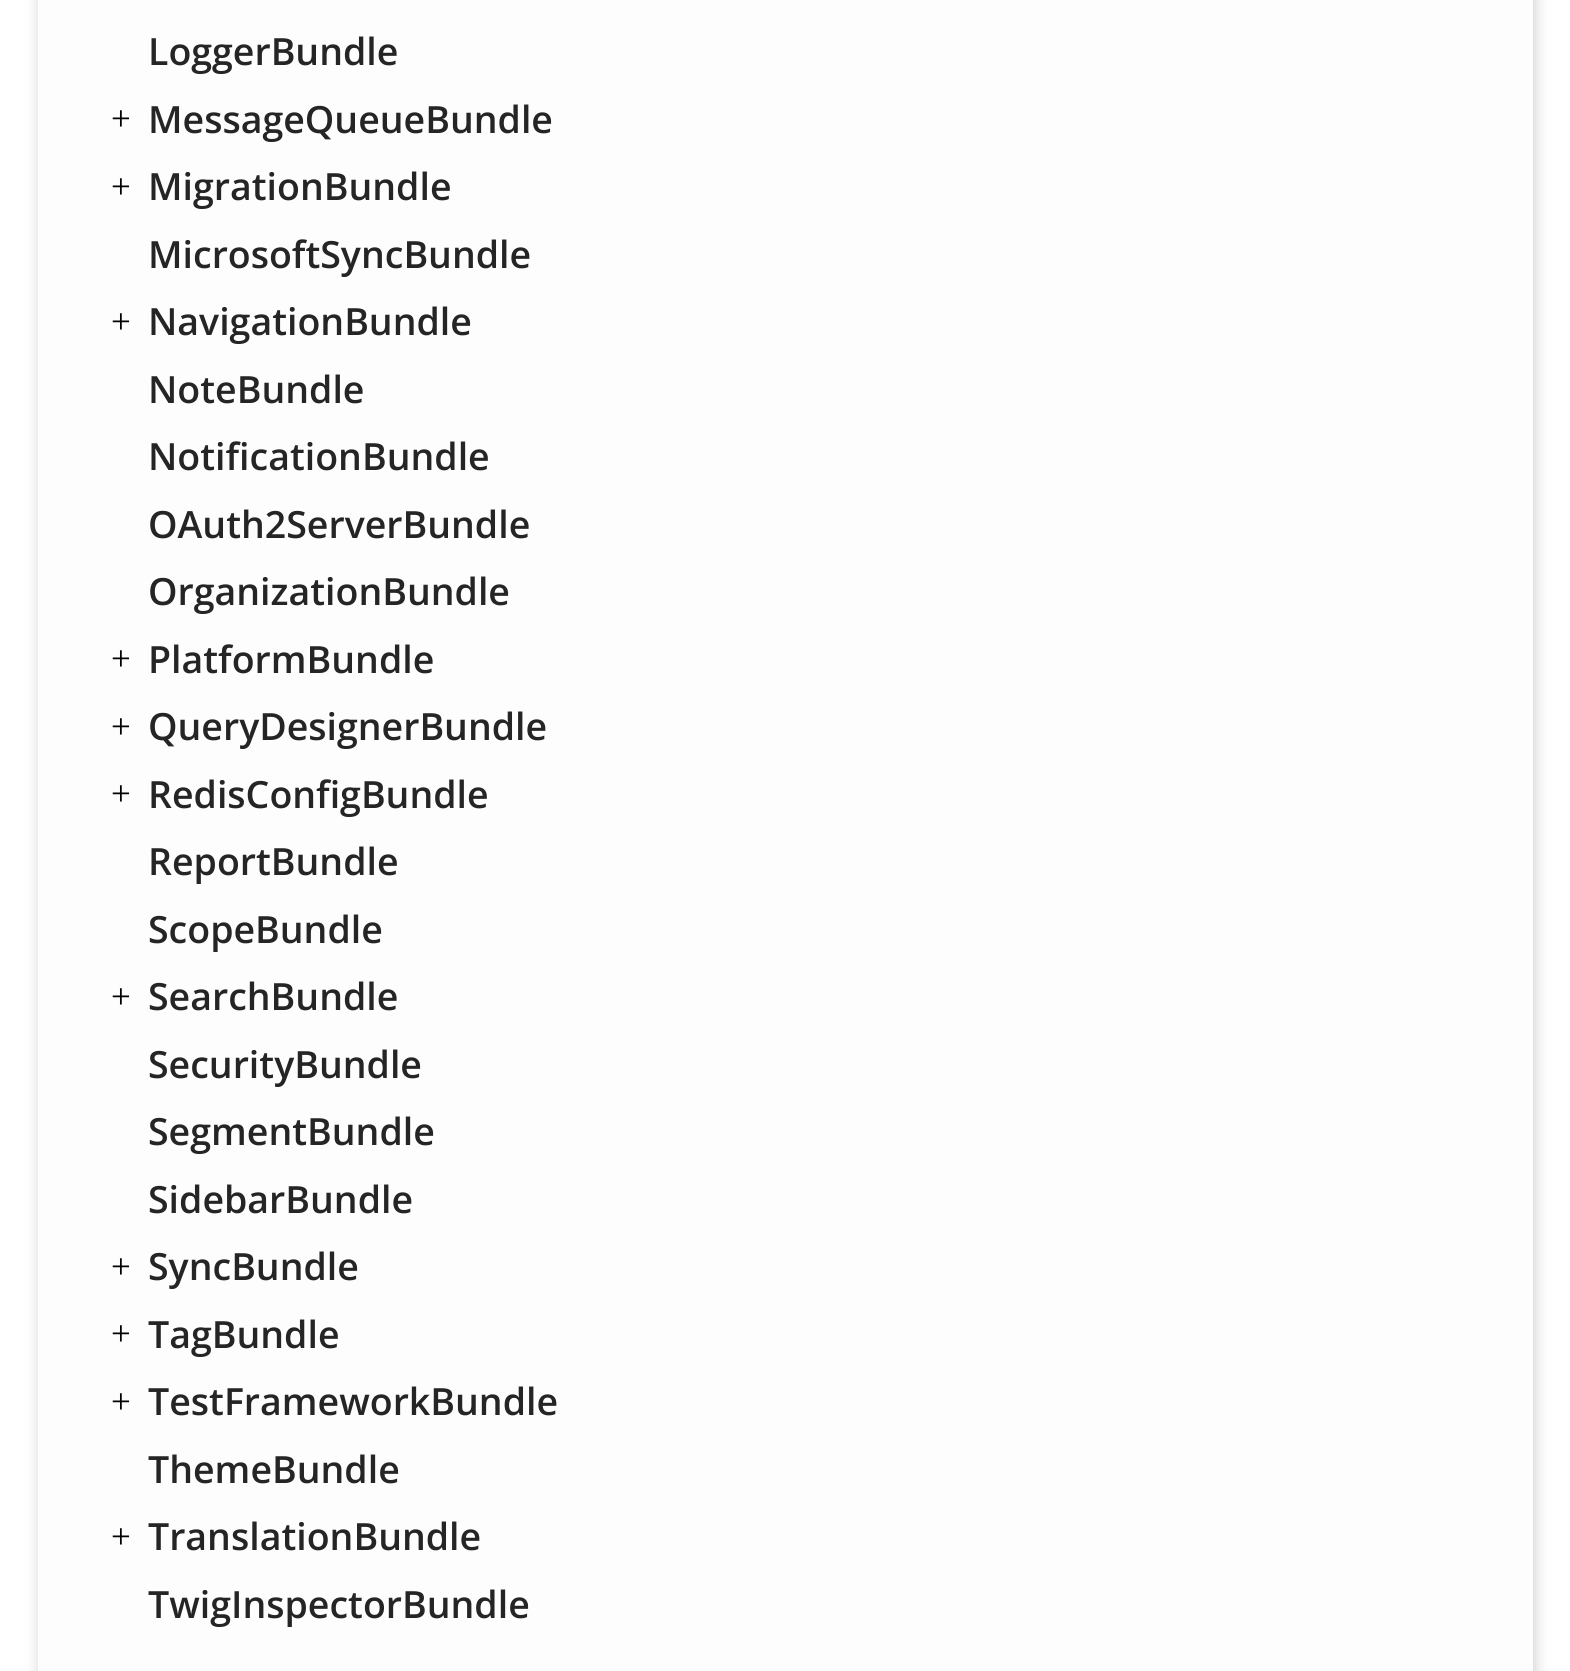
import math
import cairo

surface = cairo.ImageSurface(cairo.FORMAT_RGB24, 1570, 1671)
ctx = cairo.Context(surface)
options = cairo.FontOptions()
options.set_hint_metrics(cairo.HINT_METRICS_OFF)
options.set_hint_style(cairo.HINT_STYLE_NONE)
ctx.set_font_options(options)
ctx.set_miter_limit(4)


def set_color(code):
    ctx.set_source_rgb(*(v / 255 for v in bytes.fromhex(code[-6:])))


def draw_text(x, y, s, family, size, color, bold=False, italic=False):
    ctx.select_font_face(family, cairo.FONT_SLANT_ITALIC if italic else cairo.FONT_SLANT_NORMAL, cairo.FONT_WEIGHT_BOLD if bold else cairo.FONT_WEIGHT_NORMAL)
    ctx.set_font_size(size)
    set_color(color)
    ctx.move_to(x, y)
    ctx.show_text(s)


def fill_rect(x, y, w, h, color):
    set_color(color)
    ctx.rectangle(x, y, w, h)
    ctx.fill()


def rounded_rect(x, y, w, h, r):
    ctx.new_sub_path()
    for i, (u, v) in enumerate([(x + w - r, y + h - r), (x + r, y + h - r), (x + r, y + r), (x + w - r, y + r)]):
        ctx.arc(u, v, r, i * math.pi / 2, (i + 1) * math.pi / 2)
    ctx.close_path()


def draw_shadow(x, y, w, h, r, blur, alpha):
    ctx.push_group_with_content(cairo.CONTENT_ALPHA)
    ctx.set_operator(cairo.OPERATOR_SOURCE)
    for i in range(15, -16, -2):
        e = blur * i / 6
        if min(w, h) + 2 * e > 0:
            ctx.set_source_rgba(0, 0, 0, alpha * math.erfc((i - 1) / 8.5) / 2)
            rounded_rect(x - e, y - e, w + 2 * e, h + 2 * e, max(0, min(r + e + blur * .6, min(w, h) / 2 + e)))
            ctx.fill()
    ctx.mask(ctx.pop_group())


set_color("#ffffff")
ctx.paint()
set_color("#858585")
draw_shadow(40, -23, 1495, 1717, 0, 7.5, 0.4)
fill_rect(38, 0, 1495, 1671, "#fdfdfd")
draw_text(148, 65, "LoggerBundle", "Open Sans SemiBold", 37.5, "#252525")
draw_text(111, 130, "+", "Liberation Serif", 35, "#000000")
draw_text(148, 133, "MessageQueueBundle", "Open Sans SemiBold", 37.5, "#252525")
draw_text(111, 198, "+", "Liberation Serif", 35, "#000000")
draw_text(148, 200, "MigrationBundle", "Open Sans SemiBold", 37.5, "#252525")
draw_text(148, 268, "MicrosoftSyncBundle", "Open Sans SemiBold", 37.5, "#252525")
draw_text(111, 333, "+", "Liberation Serif", 35, "#000000")
draw_text(148, 335, "NavigationBundle", "Open Sans SemiBold", 37.5, "#252525")
draw_text(148, 403, "NoteBundle", "Open Sans SemiBold", 37.5, "#252525")
draw_text(148, 470, "NotificationBundle", "Open Sans SemiBold", 37.5, "#252525")
draw_text(148, 538, "OAuth2ServerBundle", "Open Sans SemiBold", 37.5, "#252525")
draw_text(148, 605, "OrganizationBundle", "Open Sans SemiBold", 37.5, "#252525")
draw_text(111, 670, "+", "Liberation Serif", 35, "#000000")
draw_text(148, 673, "PlatformBundle", "Open Sans SemiBold", 37.5, "#252525")
draw_text(111, 738, "+", "Liberation Serif", 35, "#000000")
draw_text(148, 740, "QueryDesignerBundle", "Open Sans SemiBold", 37.5, "#252525")
draw_text(111, 805, "+", "Liberation Serif", 35, "#000000")
draw_text(148, 808, "RedisConfigBundle", "Open Sans SemiBold", 37.5, "#252525")
draw_text(148, 875, "ReportBundle", "Open Sans SemiBold", 37.5, "#252525")
draw_text(148, 943, "ScopeBundle", "Open Sans SemiBold", 37.5, "#252525")
draw_text(111, 1008, "+", "Liberation Serif", 35, "#000000")
draw_text(148, 1010, "SearchBundle", "Open Sans SemiBold", 37.5, "#252525")
draw_text(148, 1078, "SecurityBundle", "Open Sans SemiBold", 37.5, "#252525")
draw_text(148, 1145, "SegmentBundle", "Open Sans SemiBold", 37.5, "#252525")
draw_text(148, 1213, "SidebarBundle", "Open Sans SemiBold", 37.5, "#252525")
draw_text(111, 1278, "+", "Liberation Serif", 35, "#000000")
draw_text(148, 1280, "SyncBundle", "Open Sans SemiBold", 37.5, "#252525")
draw_text(111, 1345, "+", "Liberation Serif", 35, "#000000")
draw_text(148, 1348, "TagBundle", "Open Sans SemiBold", 37.5, "#252525")
draw_text(111, 1413, "+", "Liberation Serif", 35, "#000000")
draw_text(148, 1415, "TestFrameworkBundle", "Open Sans SemiBold", 37.5, "#252525")
draw_text(148, 1483, "ThemeBundle", "Open Sans SemiBold", 37.5, "#252525")
draw_text(111, 1548, "+", "Liberation Serif", 35, "#000000")
draw_text(148, 1550, "TranslationBundle", "Open Sans SemiBold", 37.5, "#252525")
draw_text(148, 1618, "TwigInspectorBundle", "Open Sans SemiBold", 37.5, "#252525")
surface.write_to_png("output.png")
